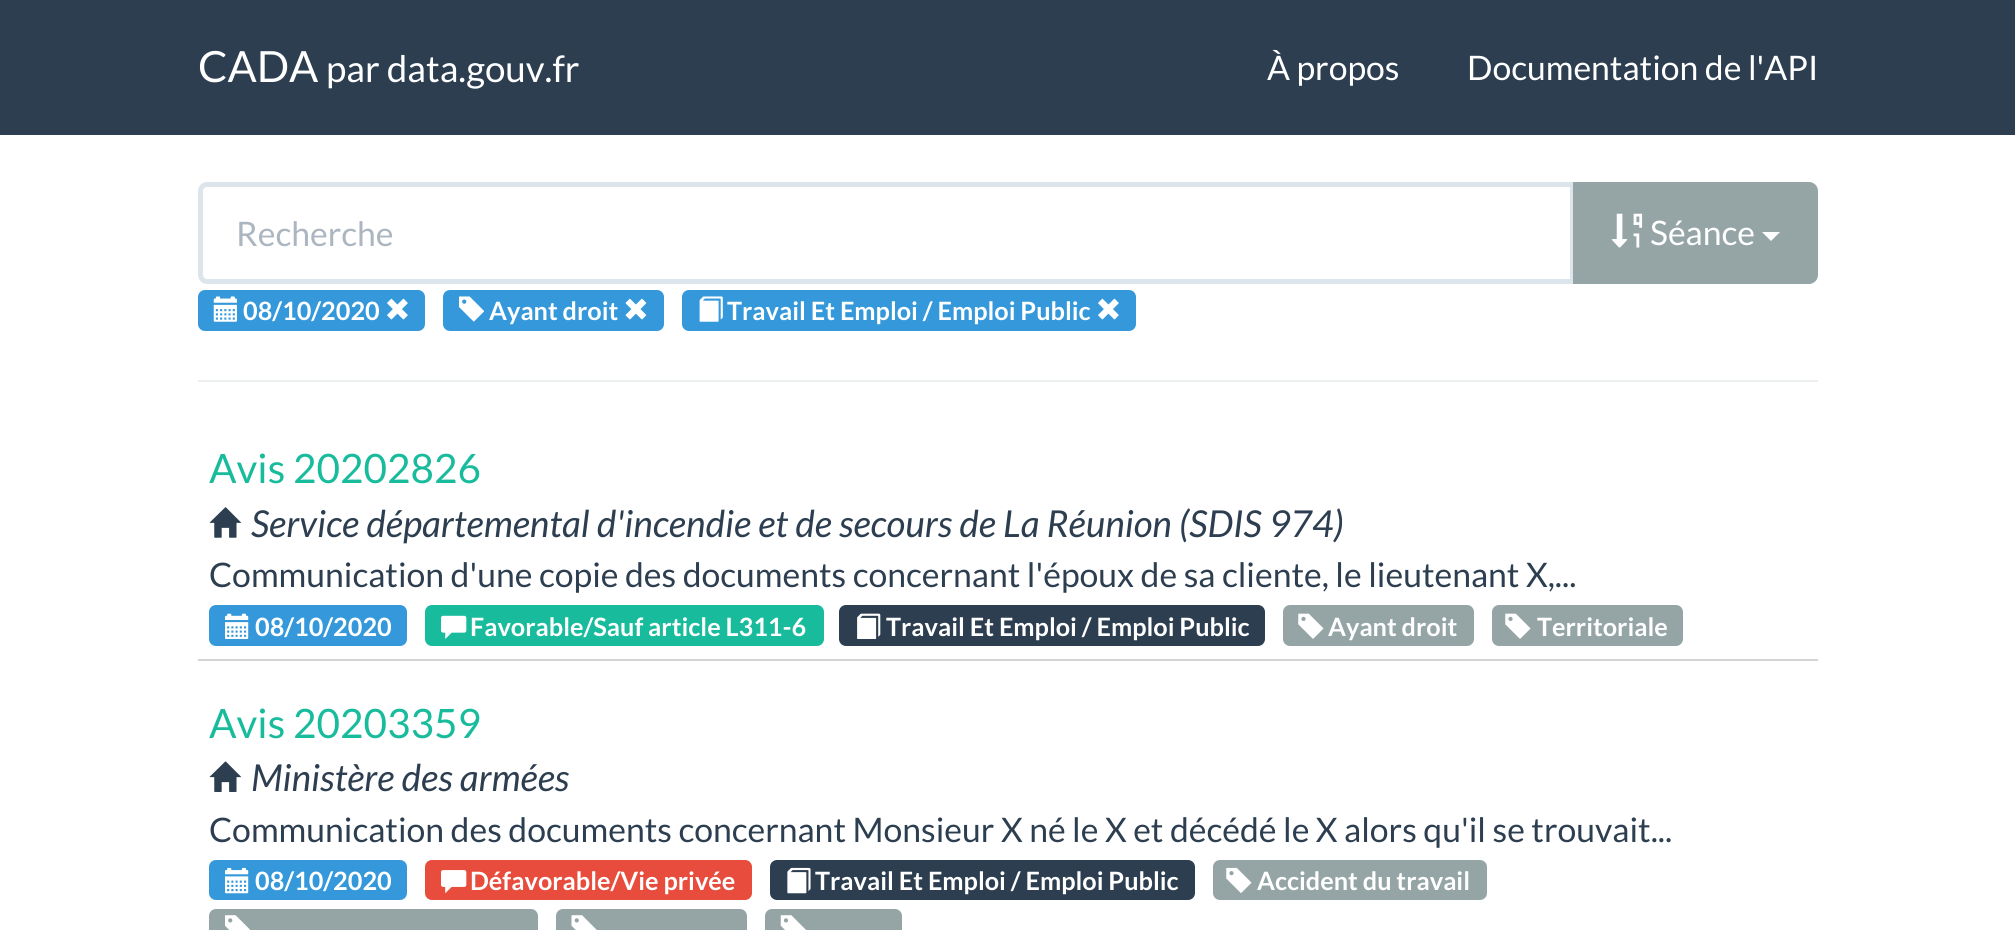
import math
import cairo

surface = cairo.ImageSurface(cairo.FORMAT_RGB24, 2015, 930)
ctx = cairo.Context(surface)
options = cairo.FontOptions()
options.set_hint_metrics(cairo.HINT_METRICS_OFF)
options.set_hint_style(cairo.HINT_STYLE_NONE)
ctx.set_font_options(options)
ctx.set_miter_limit(4)


def set_color(code):
    ctx.set_source_rgb(*(v / 255 for v in bytes.fromhex(code[-6:])))


def draw_text(x, y, s, family, size, color, bold=False, italic=False):
    ctx.select_font_face(family, cairo.FONT_SLANT_ITALIC if italic else cairo.FONT_SLANT_NORMAL, cairo.FONT_WEIGHT_BOLD if bold else cairo.FONT_WEIGHT_NORMAL)
    ctx.set_font_size(size)
    set_color(color)
    ctx.move_to(x, y)
    ctx.show_text(s)


def fill_rect(x, y, w, h, color):
    set_color(color)
    ctx.rectangle(x, y, w, h)
    ctx.fill()


def rounded_rect(x, y, w, h, r):
    ctx.new_sub_path()
    for i, (u, v) in enumerate([(x + w - r, y + h - r), (x + r, y + h - r), (x + r, y + r), (x + w - r, y + r)]):
        ctx.arc(u, v, r, i * math.pi / 2, (i + 1) * math.pi / 2)
    ctx.close_path()


def draw_image(path, x, y, w, h):
    ctx.save()
    ctx.set_source_surface(cairo.ImageSurface.create_from_png(path), x, y)
    ctx.rectangle(x, y, w, h)
    ctx.fill()
    ctx.restore()


set_color("#ffffff")
ctx.paint()
fill_rect(0, 0, 2015, 135, "#2c3e50")
draw_text(198, 82, "CADA", "Lato", 43, "#ffffff")
draw_text(326, 82, "par data.gouv.fr", "Lato", 36.75, "#ffffff")
draw_text(1267, 80, "À propos", "Lato", 33.75, "#ffffff")
draw_text(1467, 80, "Documentation de l'API", "Lato", 33.75, "#ffffff")
ctx.new_path()
ctx.move_to(207, 184.5)
ctx.line_to(1572.5, 184.5)
ctx.line_to(1572.5, 281.5)
ctx.line_to(207, 281.5)
ctx.curve_to(203.5, 281.5, 200.5, 278.5, 200.5, 275)
ctx.line_to(200.5, 191)
ctx.curve_to(200.5, 187.5, 203.5, 184.5, 207, 184.5)
ctx.close_path()
set_color("#dce4ec")
ctx.set_line_width(5)
ctx.stroke()
draw_text(236, 246, "Recherche", "Lato", 33.75, "#acb6c0")
set_color("#95a5a6")
ctx.new_path()
ctx.move_to(1575.5, 184.5)
ctx.line_to(1809, 184.5)
ctx.curve_to(1812.5, 184.5, 1815.5, 187.5, 1815.5, 191)
ctx.line_to(1815.5, 275)
ctx.curve_to(1815.5, 278.5, 1812.5, 281.5, 1809, 281.5)
ctx.line_to(1575.5, 281.5)
ctx.close_path()
ctx.fill_preserve()
ctx.stroke()
draw_image("assets/img1.png", 1611, 213, 32, 35)
draw_text(1650, 245, "Séance", "Lato", 33.75, "#ffffff")
ctx.new_path()
ctx.move_to(1762, 232)
ctx.line_to(1780, 232)
ctx.line_to(1771, 241)
ctx.close_path()
ctx.fill()
set_color("#3498db")
rounded_rect(198, 290, 227, 41, 7)
ctx.fill()
draw_image("assets/img2.png", 213, 296, 24, 26)
draw_text(243, 320, "08/10/2020", "Lato", 25.25, "#ffffff", bold=True)
draw_image("assets/img3.png", 387, 298, 21, 22)
set_color("#3498db")
rounded_rect(443, 290, 221, 41, 7)
ctx.fill()
draw_image("assets/img4.png", 459, 296, 26, 26)
draw_text(489, 320, "Ayant droit", "Lato", 25.25, "#ffffff", bold=True)
draw_image("assets/img5.png", 625, 298, 22, 22)
set_color("#3498db")
rounded_rect(682, 290, 454, 41, 7)
ctx.fill()
draw_image("assets/img6.png", 699, 296, 24, 26)
draw_text(727, 320, "Travail Et Emploi / Emploi Public", "Lato", 25.25, "#ffffff", bold=True)
draw_image("assets/img3.png", 1098, 298, 21, 22)
fill_rect(198, 380, 1620, 2, "#ecf0f1")
fill_rect(198, 659, 1620, 2, "#d3d3d3")
draw_text(209, 483, "Avis 20202826", "Lato", 40.5, "#18bc9c")
draw_image("assets/img7.png", 209, 507, 33, 31)
draw_text(251, 537, "Service départemental d'incendie et de secours de La Réunion (SDIS 974)", "Lato", 37.1, "#2c3e50", italic=True)
draw_text(209, 587, "Communication d'une copie des documents concernant l'époux de sa cliente, le lieutenant X,...", "Lato", 33.75, "#2c3e50")
set_color("#3498db")
rounded_rect(209, 605, 198, 41, 7)
ctx.fill()
draw_image("assets/img8.png", 225, 613, 24, 26)
draw_text(255, 636, "08/10/2020", "Lato", 25.25, "#ffffff", bold=True)
set_color("#18bc9c")
rounded_rect(425, 605, 399, 41, 7)
ctx.fill()
draw_image("assets/img9.png", 441, 615, 26, 24)
draw_text(470, 636, "Favorable/Sauf article L311-6", "Lato", 25.25, "#ffffff", bold=True)
set_color("#2c3e50")
rounded_rect(839, 605, 426, 41, 7)
ctx.fill()
draw_image("assets/img10.png", 857, 613, 24, 26)
draw_text(886, 636, "Travail Et Emploi / Emploi Public", "Lato", 25.25, "#ffffff", bold=True)
set_color("#95a5a6")
rounded_rect(1283, 605, 191, 41, 7)
ctx.fill()
draw_image("assets/img11.png", 1298, 613, 26, 26)
draw_text(1328, 636, "Ayant droit", "Lato", 25.25, "#ffffff", bold=True)
set_color("#95a5a6")
rounded_rect(1492, 605, 191, 41, 7)
ctx.fill()
draw_image("assets/img11.png", 1505, 613, 26, 26)
draw_text(1537, 636, "Territoriale", "Lato", 25.25, "#ffffff", bold=True)
draw_text(209, 738, "Avis 20203359", "Lato", 40.5, "#18bc9c")
draw_image("assets/img12.png", 209, 761, 33, 31)
draw_text(251, 791, "Ministère des armées", "Lato", 37.1, "#2c3e50", italic=True)
draw_text(209, 842, "Communication des documents concernant Monsieur X né le X et décédé le X alors qu'il se trouvait...", "Lato", 33.75, "#2c3e50")
set_color("#3498db")
rounded_rect(209, 860, 198, 40, 7)
ctx.fill()
draw_image("assets/img13.png", 225, 867, 24, 27)
draw_text(255, 890, "08/10/2020", "Lato", 25.25, "#ffffff", bold=True)
set_color("#e74c3c")
rounded_rect(425, 860, 327, 40, 7)
ctx.fill()
draw_image("assets/img14.png", 441, 870, 26, 24)
draw_text(470, 890, "Défavorable/Vie privée", "Lato", 25.25, "#ffffff", bold=True)
set_color("#2c3e50")
rounded_rect(770, 860, 425, 40, 7)
ctx.fill()
draw_image("assets/img15.png", 787, 867, 24, 27)
draw_text(815, 890, "Travail Et Emploi / Emploi Public", "Lato", 25.25, "#ffffff", bold=True)
set_color("#95a5a6")
rounded_rect(1213, 860, 274, 40, 7)
ctx.fill()
draw_image("assets/img16.png", 1226, 867, 26, 26)
draw_text(1257, 890, "Accident du travail", "Lato", 25.25, "#ffffff", bold=True)
set_color("#95a5a6")
rounded_rect(209, 909, 329, 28, 7)
ctx.fill()
draw_image("assets/img17.png", 225, 915, 25, 15)
rounded_rect(556, 909, 191, 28, 7)
ctx.fill()
draw_image("assets/img18.png", 571, 915, 26, 15)
rounded_rect(765, 909, 137, 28, 7)
ctx.fill()
draw_image("assets/img19.png", 780, 915, 26, 15)
surface.write_to_png("output.png")
